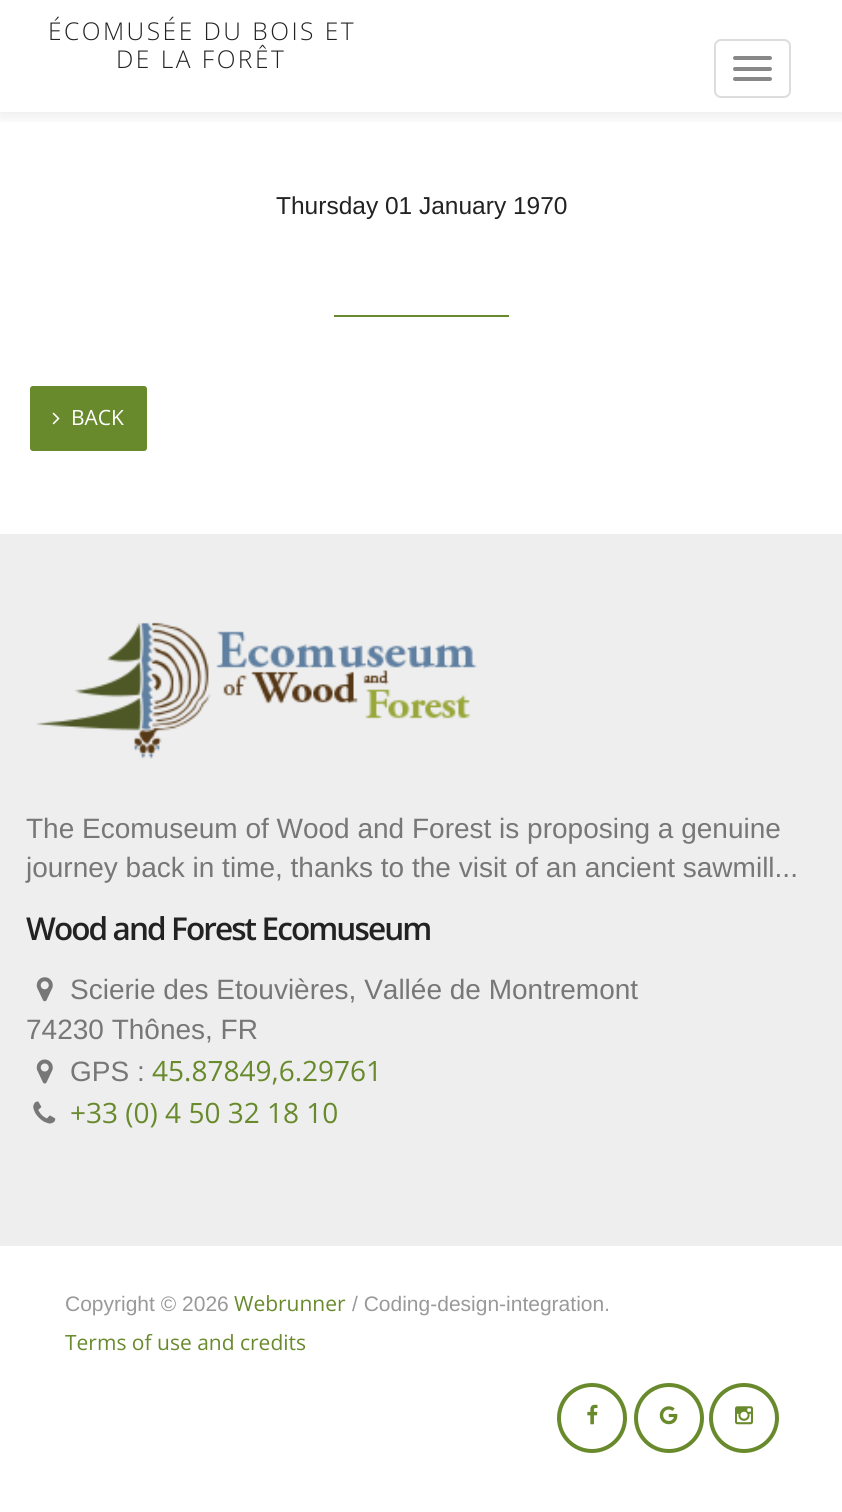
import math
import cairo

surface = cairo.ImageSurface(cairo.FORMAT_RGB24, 842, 1512)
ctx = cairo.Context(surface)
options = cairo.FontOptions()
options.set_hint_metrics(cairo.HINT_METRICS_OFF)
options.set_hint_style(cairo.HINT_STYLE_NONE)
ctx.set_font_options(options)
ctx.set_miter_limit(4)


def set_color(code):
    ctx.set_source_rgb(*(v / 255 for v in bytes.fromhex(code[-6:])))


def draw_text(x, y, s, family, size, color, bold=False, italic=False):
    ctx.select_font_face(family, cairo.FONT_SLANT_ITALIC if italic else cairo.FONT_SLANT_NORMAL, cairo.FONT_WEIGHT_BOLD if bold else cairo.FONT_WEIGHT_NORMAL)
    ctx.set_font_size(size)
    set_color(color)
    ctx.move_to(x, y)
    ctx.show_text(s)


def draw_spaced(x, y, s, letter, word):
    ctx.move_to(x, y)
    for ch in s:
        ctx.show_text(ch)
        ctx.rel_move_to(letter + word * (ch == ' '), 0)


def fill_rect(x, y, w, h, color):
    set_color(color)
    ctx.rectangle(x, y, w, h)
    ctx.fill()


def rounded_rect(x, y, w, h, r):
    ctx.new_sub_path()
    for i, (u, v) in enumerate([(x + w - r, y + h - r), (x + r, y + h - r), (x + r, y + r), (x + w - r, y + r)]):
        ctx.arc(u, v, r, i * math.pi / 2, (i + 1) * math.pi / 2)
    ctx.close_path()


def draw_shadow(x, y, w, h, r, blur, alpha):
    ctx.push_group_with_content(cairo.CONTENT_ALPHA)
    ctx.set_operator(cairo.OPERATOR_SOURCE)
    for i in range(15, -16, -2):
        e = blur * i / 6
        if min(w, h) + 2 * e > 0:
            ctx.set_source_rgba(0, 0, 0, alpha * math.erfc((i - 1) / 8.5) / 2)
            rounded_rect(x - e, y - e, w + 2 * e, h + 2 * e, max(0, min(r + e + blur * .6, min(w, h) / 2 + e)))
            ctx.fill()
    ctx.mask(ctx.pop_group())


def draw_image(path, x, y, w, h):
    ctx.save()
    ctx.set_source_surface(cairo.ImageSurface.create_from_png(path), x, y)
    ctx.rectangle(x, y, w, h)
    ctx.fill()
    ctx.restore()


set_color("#ffffff")
ctx.paint()
ctx.save()
ctx.rectangle(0, 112, 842, 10)
ctx.clip()
set_color("#000000")
draw_shadow(0, 2, 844, 112, 0, 9, 0.1)
ctx.restore()
ctx.select_font_face("Open Sans Light")
ctx.set_font_size(24.5)
set_color("#222222")
draw_spaced(48, 40, "ÉCOMUSÉE DU BOIS ET", 2.5, 0)
draw_spaced(116, 68, "DE LA FORÊT", 2.5, 0)
rounded_rect(715, 40, 75, 57, 6)
set_color("#dddddd")
ctx.stroke()
set_color("#888888")
rounded_rect(733, 56, 39, 4, 2)
ctx.fill()
rounded_rect(733, 67, 39, 4, 2)
ctx.fill()
rounded_rect(733, 77, 39, 4, 2)
ctx.fill()
draw_text(276, 214, "Thursday 01 January 1970", "Liberation Sans", 24.5, "#222222")
fill_rect(334, 315, 175, 2, "#688a2c")
rounded_rect(28, 384, 121, 69, 5)
ctx.fill_preserve()
set_color("#ffffff")
ctx.set_line_width(4)
ctx.stroke()
draw_image("assets/img1.png", 52, 412, 8, 13)
draw_text(71, 425, "BACK", "Open Sans", 21, "#ffffff")
fill_rect(0, 534, 842, 712, "#eeeeee")
draw_image("assets/img2.png", 36, 622, 441, 137)
draw_text(26, 838, "The Ecomuseum of Wood and Forest is proposing a genuine", "Liberation Sans", 28, "#777777")
draw_text(26, 877, "journey back in time, thanks to the visit of an ancient sawmill...", "Liberation Sans", 28, "#777777")
ctx.select_font_face("Open Sans SemiBold")
ctx.set_font_size(31.5)
set_color("#222222")
draw_spaced(26, 940, "Wood and Forest Ecomuseum", -1.9, 0)
draw_image("assets/img3.png", 36, 977, 17, 25)
draw_text(70, 999, "Scierie des Etouvières, Vallée de Montremont", "Liberation Sans", 28, "#777777")
draw_text(26, 1039, "74230 Thônes, FR", "Liberation Sans", 28, "#777777")
draw_image("assets/img4.png", 36, 1059, 17, 25)
draw_text(70, 1081, "GPS :", "Liberation Sans", 28, "#777777")
draw_text(152, 1081, "45.87849,6.29761", "Open Sans", 28, "#688a2c")
draw_image("assets/img5.png", 33, 1101, 23, 23)
draw_text(70, 1123, "+33 (0) 4 50 32 18 10", "Open Sans", 28, "#688a2c")
draw_text(65, 1311, "Copyright © 2026", "Liberation Sans", 21, "#999999")
draw_text(234, 1311, "Webrunner", "Open Sans", 21, "#688a2c")
draw_text(352, 1311, "/ Coding-design-integration.", "Liberation Sans", 21, "#999999")
draw_text(65, 1350, "Terms of use and credits", "Open Sans", 21, "#688a2c")
ctx.new_path()
ctx.arc(592, 1418, 33, 0, 2 * math.pi)
ctx.stroke()
draw_image("assets/img6.png", 587, 1404, 11, 21)
ctx.arc(669, 1418, 33, 0, 2 * math.pi)
ctx.stroke()
draw_image("assets/img7.png", 659, 1406, 19, 19)
ctx.arc(744, 1418, 33, 0, 2 * math.pi)
ctx.stroke()
draw_image("assets/img8.png", 735, 1406, 18, 19)
surface.write_to_png("output.png")
